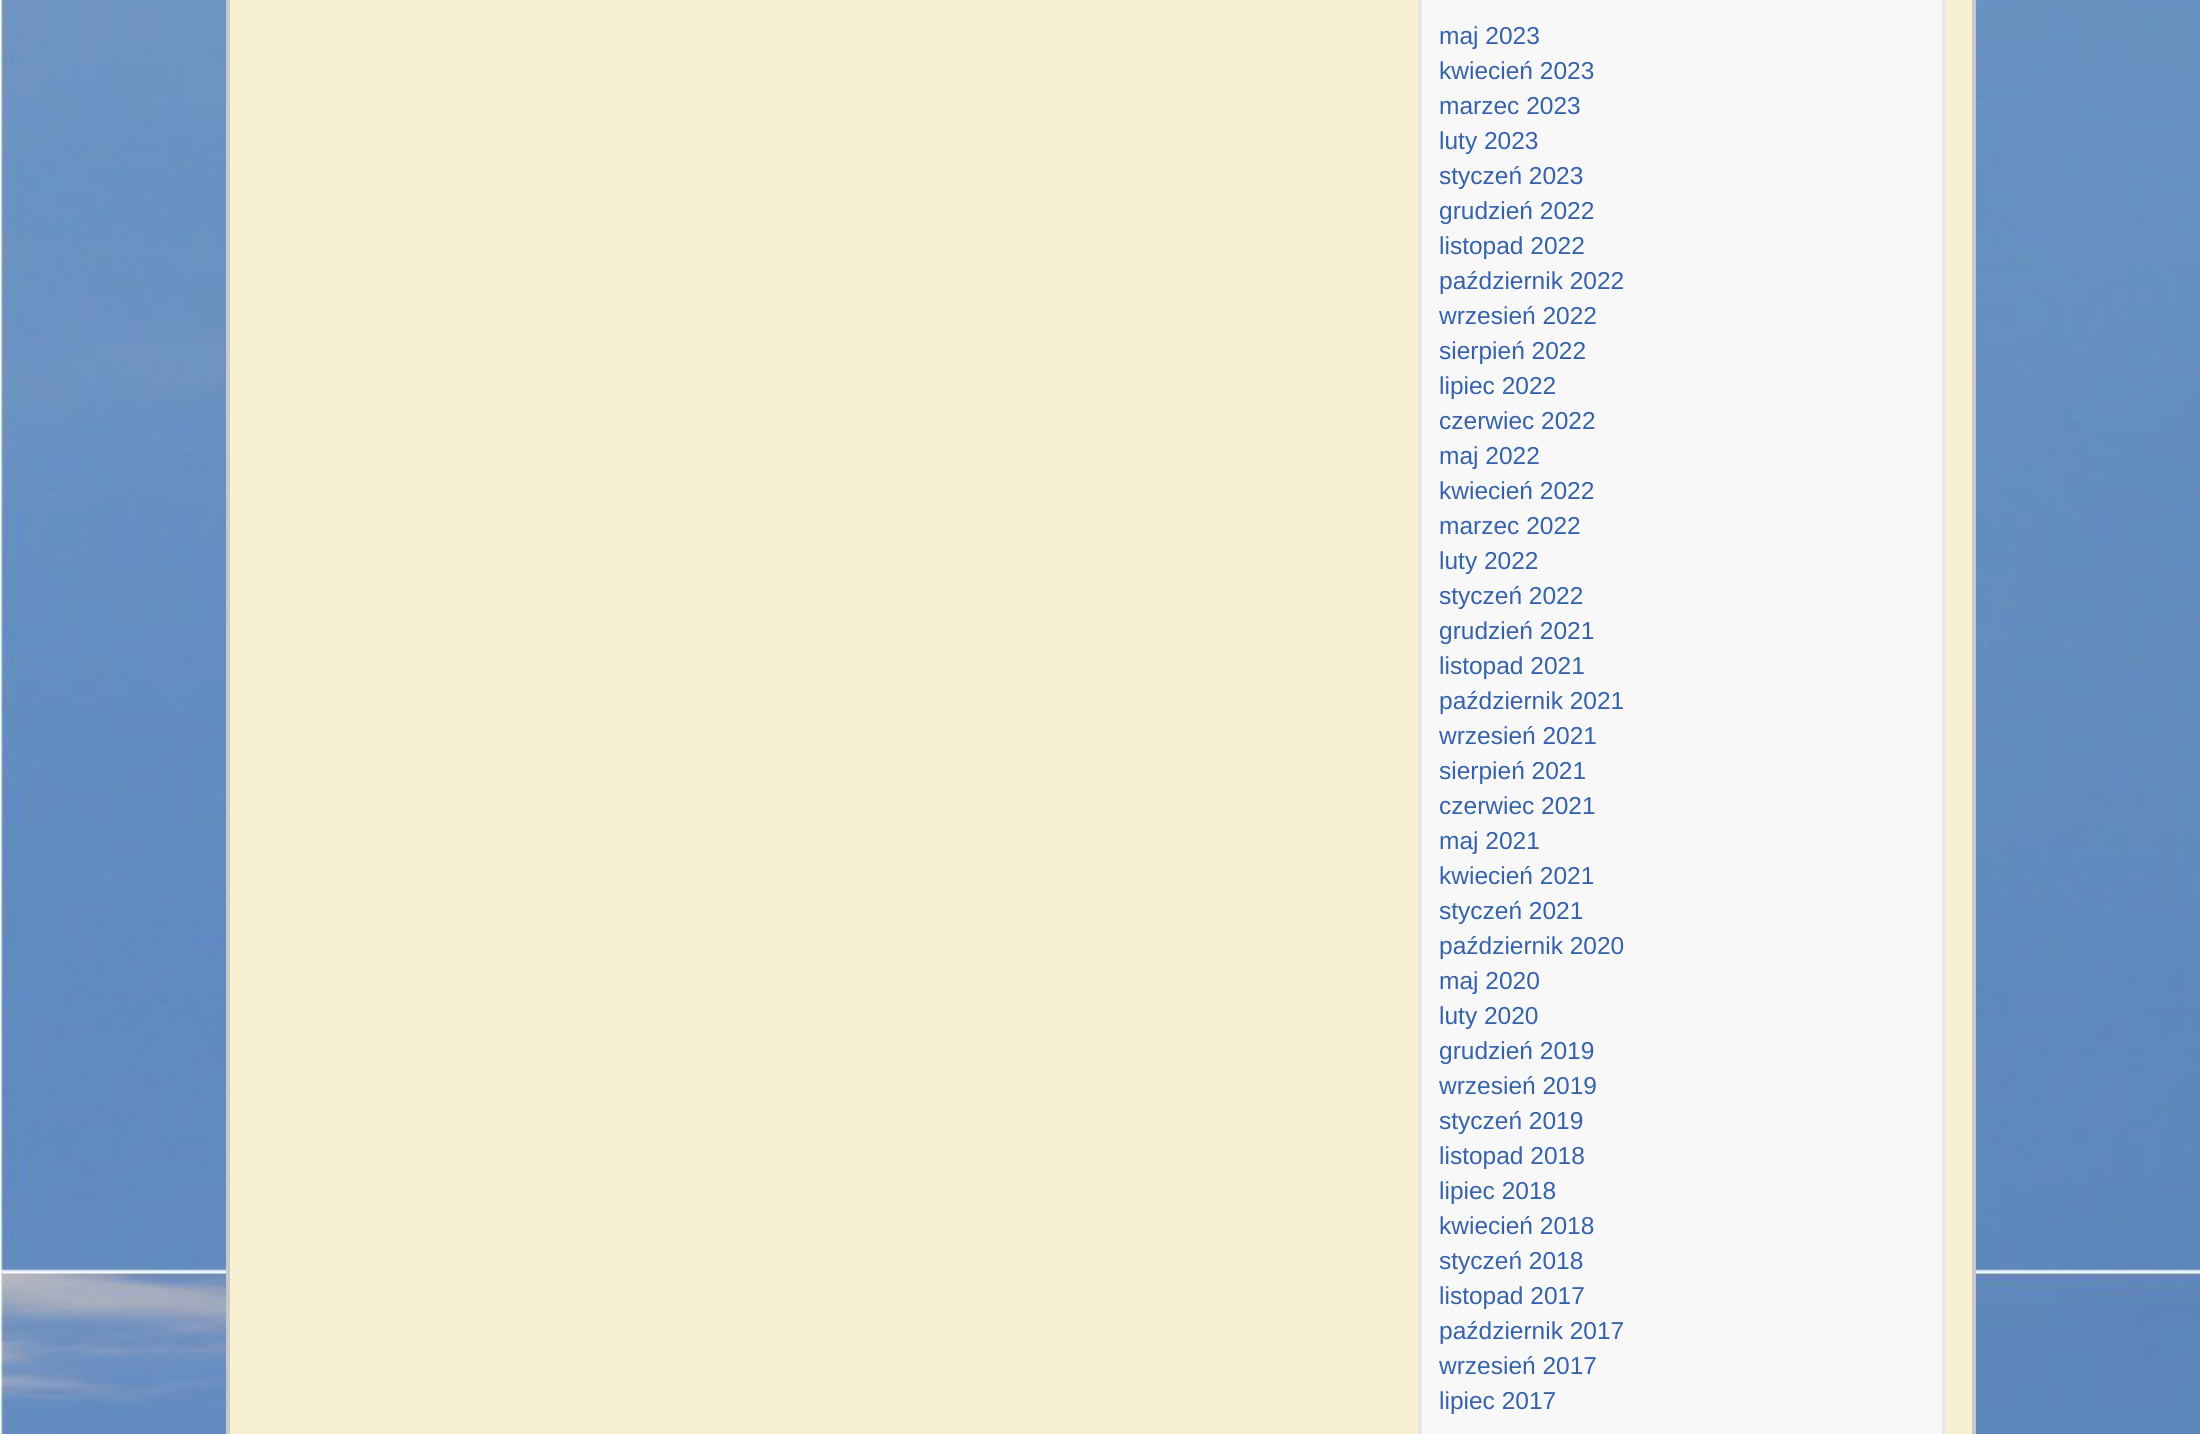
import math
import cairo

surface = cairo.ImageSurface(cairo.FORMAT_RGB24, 2200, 1434)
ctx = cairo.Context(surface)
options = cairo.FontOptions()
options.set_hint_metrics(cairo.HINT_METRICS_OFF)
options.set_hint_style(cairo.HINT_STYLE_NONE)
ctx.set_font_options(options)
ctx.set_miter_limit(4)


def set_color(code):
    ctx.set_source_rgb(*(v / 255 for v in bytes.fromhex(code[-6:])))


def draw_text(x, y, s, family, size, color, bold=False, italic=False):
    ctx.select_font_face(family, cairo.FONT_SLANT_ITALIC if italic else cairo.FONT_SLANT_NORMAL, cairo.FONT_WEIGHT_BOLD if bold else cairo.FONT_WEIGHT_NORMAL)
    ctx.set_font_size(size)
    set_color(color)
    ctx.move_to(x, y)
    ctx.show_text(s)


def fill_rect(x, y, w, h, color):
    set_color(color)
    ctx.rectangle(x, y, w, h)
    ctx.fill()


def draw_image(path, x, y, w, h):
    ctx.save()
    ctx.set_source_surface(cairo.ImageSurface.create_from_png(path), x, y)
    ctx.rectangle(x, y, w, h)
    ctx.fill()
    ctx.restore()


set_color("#ffffff")
ctx.paint()
draw_image("assets/img1.png", 0, 0, 2200, 1434)
fill_rect(230, 0, 1742, 1434, "#f8f0d2")
fill_rect(1972, 0, 4, 1434, "#c8c8c8")
fill_rect(226, 0, 4, 1434, "#c8c8c8")
set_color("#f8f8f8")
ctx.rectangle(1420, -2, 524, 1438)
ctx.fill_preserve()
set_color("#e7e7e7")
ctx.set_line_width(4)
ctx.stroke()
draw_text(1439, 44, "maj 2023", "Liberation Sans", 24.5, "#3562ab")
draw_text(1439, 79, "kwiecień 2023", "Liberation Sans", 24.5, "#3562ab")
draw_text(1439, 114, "marzec 2023", "Liberation Sans", 24.5, "#3562ab")
draw_text(1439, 149, "luty 2023", "Liberation Sans", 24.5, "#3562ab")
draw_text(1439, 184, "styczeń 2023", "Liberation Sans", 24.5, "#3562ab")
draw_text(1439, 219, "grudzień 2022", "Liberation Sans", 24.5, "#3562ab")
draw_text(1439, 254, "listopad 2022", "Liberation Sans", 24.5, "#3562ab")
draw_text(1439, 289, "październik 2022", "Liberation Sans", 24.5, "#3562ab")
draw_text(1439, 324, "wrzesień 2022", "Liberation Sans", 24.5, "#3562ab")
draw_text(1439, 359, "sierpień 2022", "Liberation Sans", 24.5, "#3562ab")
draw_text(1439, 394, "lipiec 2022", "Liberation Sans", 24.5, "#3562ab")
draw_text(1439, 429, "czerwiec 2022", "Liberation Sans", 24.5, "#3562ab")
draw_text(1439, 464, "maj 2022", "Liberation Sans", 24.5, "#3562ab")
draw_text(1439, 499, "kwiecień 2022", "Liberation Sans", 24.5, "#3562ab")
draw_text(1439, 534, "marzec 2022", "Liberation Sans", 24.5, "#3562ab")
draw_text(1439, 569, "luty 2022", "Liberation Sans", 24.5, "#3562ab")
draw_text(1439, 604, "styczeń 2022", "Liberation Sans", 24.5, "#3562ab")
draw_text(1439, 639, "grudzień 2021", "Liberation Sans", 24.5, "#3562ab")
draw_text(1439, 674, "listopad 2021", "Liberation Sans", 24.5, "#3562ab")
draw_text(1439, 709, "październik 2021", "Liberation Sans", 24.5, "#3562ab")
draw_text(1439, 744, "wrzesień 2021", "Liberation Sans", 24.5, "#3562ab")
draw_text(1439, 779, "sierpień 2021", "Liberation Sans", 24.5, "#3562ab")
draw_text(1439, 814, "czerwiec 2021", "Liberation Sans", 24.5, "#3562ab")
draw_text(1439, 849, "maj 2021", "Liberation Sans", 24.5, "#3562ab")
draw_text(1439, 884, "kwiecień 2021", "Liberation Sans", 24.5, "#3562ab")
draw_text(1439, 919, "styczeń 2021", "Liberation Sans", 24.5, "#3562ab")
draw_text(1439, 954, "październik 2020", "Liberation Sans", 24.5, "#3562ab")
draw_text(1439, 989, "maj 2020", "Liberation Sans", 24.5, "#3562ab")
draw_text(1439, 1024, "luty 2020", "Liberation Sans", 24.5, "#3562ab")
draw_text(1439, 1059, "grudzień 2019", "Liberation Sans", 24.5, "#3562ab")
draw_text(1439, 1094, "wrzesień 2019", "Liberation Sans", 24.5, "#3562ab")
draw_text(1439, 1129, "styczeń 2019", "Liberation Sans", 24.5, "#3562ab")
draw_text(1439, 1164, "listopad 2018", "Liberation Sans", 24.5, "#3562ab")
draw_text(1439, 1199, "lipiec 2018", "Liberation Sans", 24.5, "#3562ab")
draw_text(1439, 1234, "kwiecień 2018", "Liberation Sans", 24.5, "#3562ab")
draw_text(1439, 1269, "styczeń 2018", "Liberation Sans", 24.5, "#3562ab")
draw_text(1439, 1304, "listopad 2017", "Liberation Sans", 24.5, "#3562ab")
draw_text(1439, 1339, "październik 2017", "Liberation Sans", 24.5, "#3562ab")
draw_text(1439, 1374, "wrzesień 2017", "Liberation Sans", 24.5, "#3562ab")
draw_text(1439, 1409, "lipiec 2017", "Liberation Sans", 24.5, "#3562ab")
surface.write_to_png("output.png")
